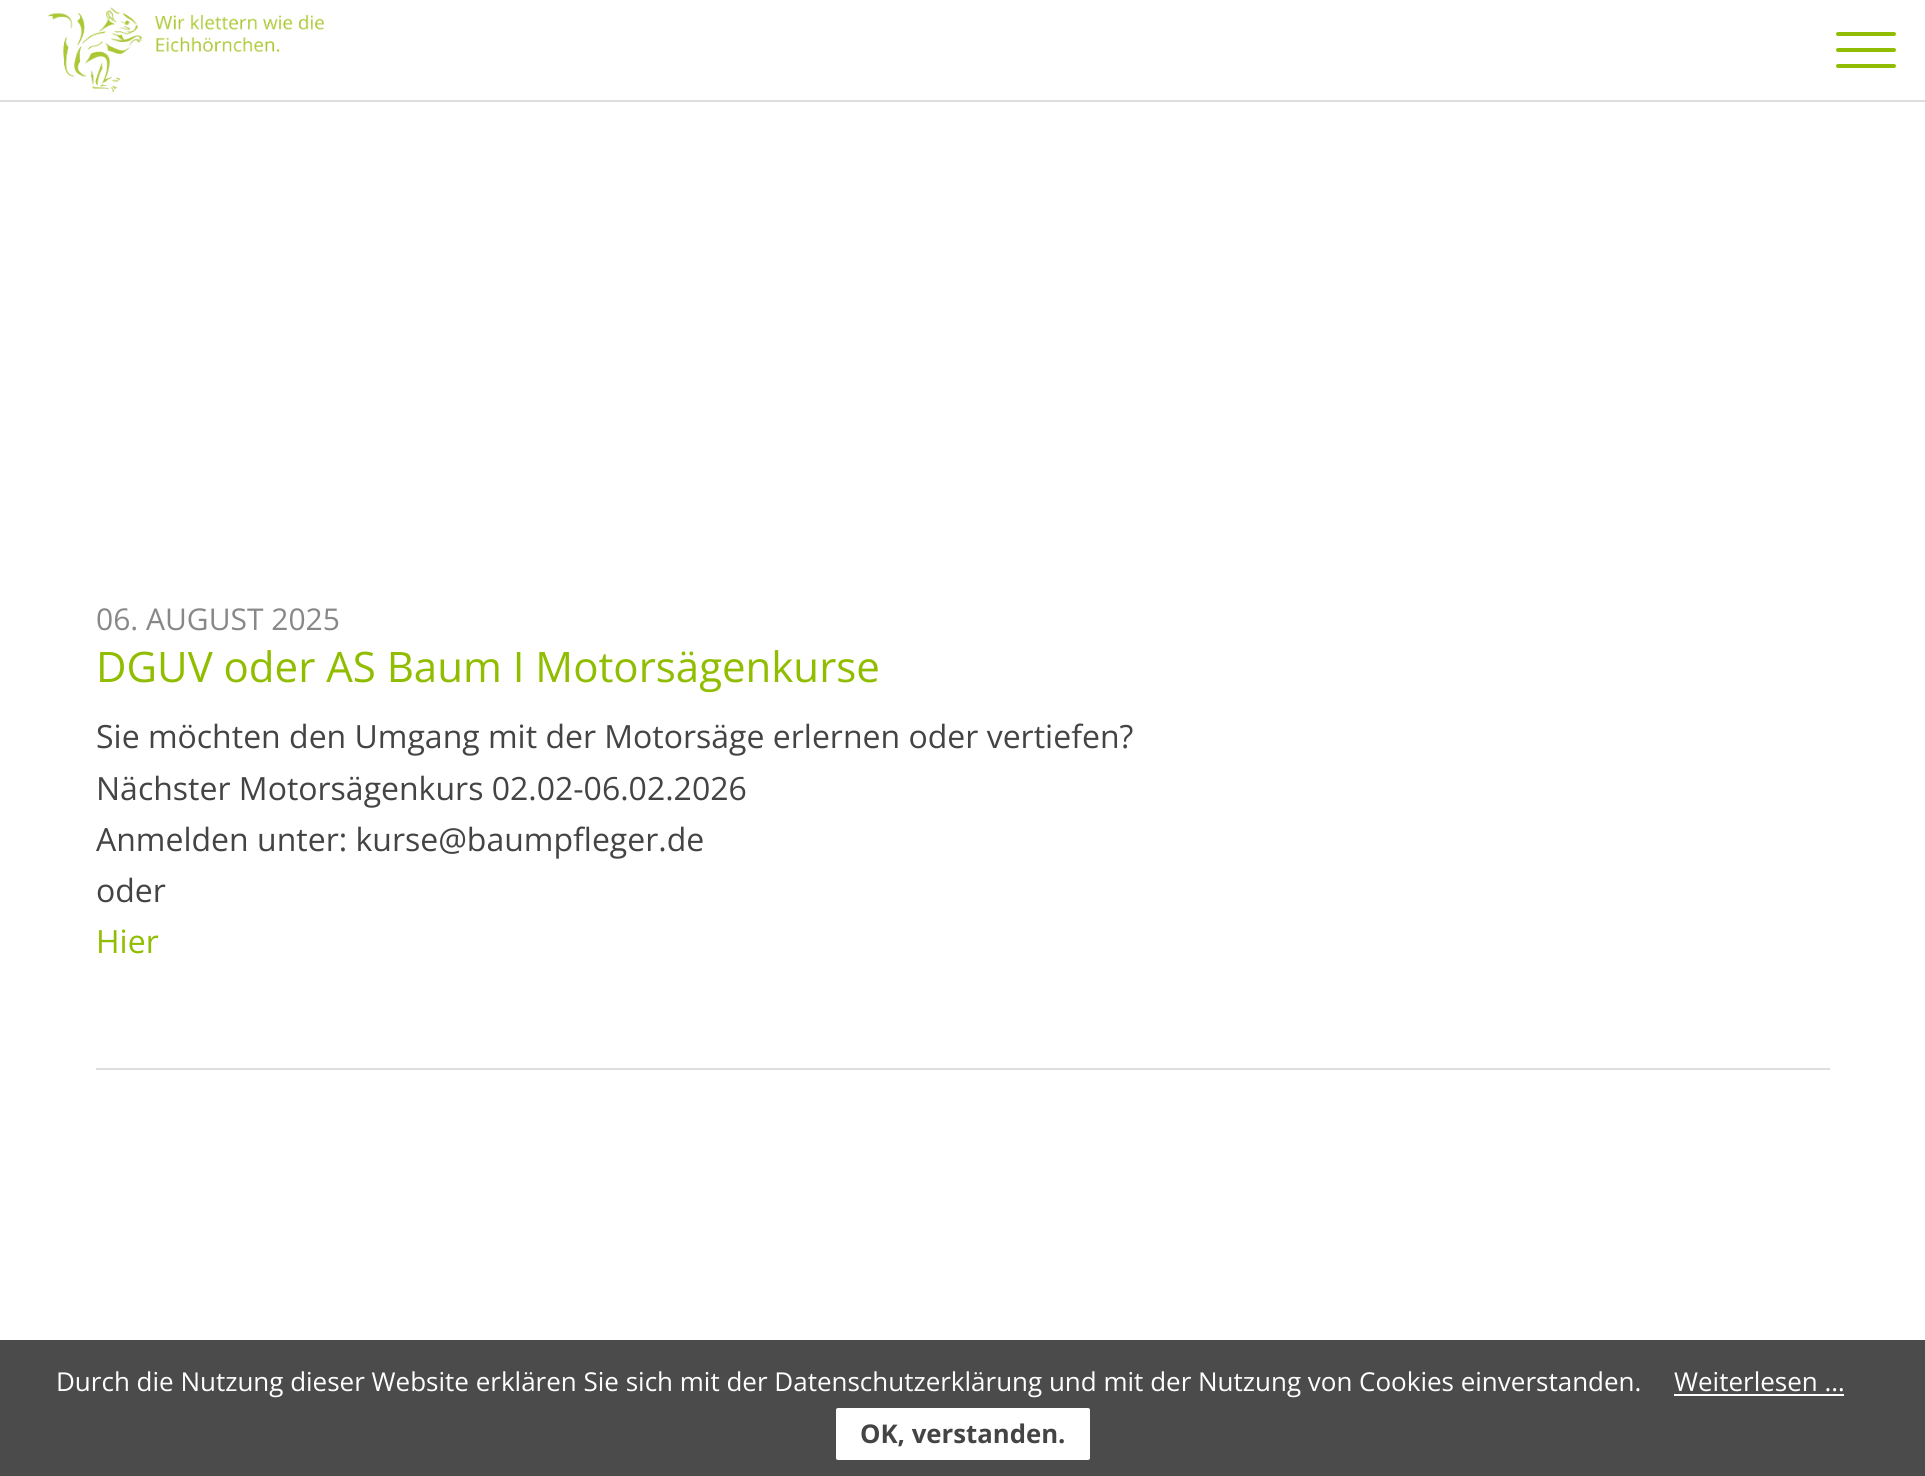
import math
import cairo

surface = cairo.ImageSurface(cairo.FORMAT_RGB24, 1925, 1476)
ctx = cairo.Context(surface)
options = cairo.FontOptions()
options.set_hint_metrics(cairo.HINT_METRICS_OFF)
options.set_hint_style(cairo.HINT_STYLE_NONE)
ctx.set_font_options(options)
ctx.set_miter_limit(4)


def set_color(code):
    ctx.set_source_rgb(*(v / 255 for v in bytes.fromhex(code[-6:])))


def draw_text(x, y, s, family, size, color, bold=False, italic=False):
    ctx.select_font_face(family, cairo.FONT_SLANT_ITALIC if italic else cairo.FONT_SLANT_NORMAL, cairo.FONT_WEIGHT_BOLD if bold else cairo.FONT_WEIGHT_NORMAL)
    ctx.set_font_size(size)
    set_color(color)
    ctx.move_to(x, y)
    ctx.show_text(s)


def fill_rect(x, y, w, h, color):
    set_color(color)
    ctx.rectangle(x, y, w, h)
    ctx.fill()


def rounded_rect(x, y, w, h, r):
    ctx.new_sub_path()
    for i, (u, v) in enumerate([(x + w - r, y + h - r), (x + r, y + h - r), (x + r, y + r), (x + w - r, y + r)]):
        ctx.arc(u, v, r, i * math.pi / 2, (i + 1) * math.pi / 2)
    ctx.close_path()


def draw_image(path, x, y, w, h):
    ctx.save()
    ctx.set_source_surface(cairo.ImageSurface.create_from_png(path), x, y)
    ctx.rectangle(x, y, w, h)
    ctx.fill()
    ctx.restore()


set_color("#ffffff")
ctx.paint()
fill_rect(0, 100, 1925, 2, "#dddddd")
draw_image("assets/img1.png", 48, 7, 277, 86)
set_color("#90bd00")
rounded_rect(1836, 32, 60, 4, 2)
ctx.fill()
rounded_rect(1836, 48, 60, 4, 2)
ctx.fill()
rounded_rect(1836, 64, 60, 4, 2)
ctx.fill()
fill_rect(96, 1068, 1734, 2, "#dddddd")
draw_text(96, 630, "06. AUGUST 2025", "Open Sans", 30, "#888888")
draw_text(96, 682, "DGUV oder AS Baum I Motorsägenkurse", "Open Sans", 42, "#90bd00")
draw_text(96, 748, "Sie möchten den Umgang mit der Motorsäge erlernen oder vertiefen?", "Open Sans", 32, "#444444")
draw_text(96, 800, "Nächster Motorsägenkurs 02.02-06.02.2026", "Open Sans", 32, "#444444")
draw_text(96, 851, "Anmelden unter: kurse@baumpfleger.de", "Open Sans", 32, "#444444")
draw_text(96, 902, "oder", "Open Sans", 32, "#444444")
draw_text(96, 953, "Hier", "Open Sans", 32, "#90bd00")
fill_rect(0, 1340, 1925, 136, "#4b4b4b")
draw_text(56, 1391, "Durch die Nutzung dieser Website erklären Sie sich mit der Datenschutzerklärung und mit der Nutzung von Cookies einverstanden.", "Open Sans", 26, "#ffffff")
draw_text(1674, 1391, "Weiterlesen …", "Open Sans", 26, "#ffffff")
fill_rect(1674, 1394, 170, 2, "#ffffff")
rounded_rect(836, 1408, 254, 52, 2)
ctx.fill()
draw_text(860, 1443, "OK, verstanden.", "Open Sans", 25.75, "#444444", bold=True)
surface.write_to_png("output.png")
